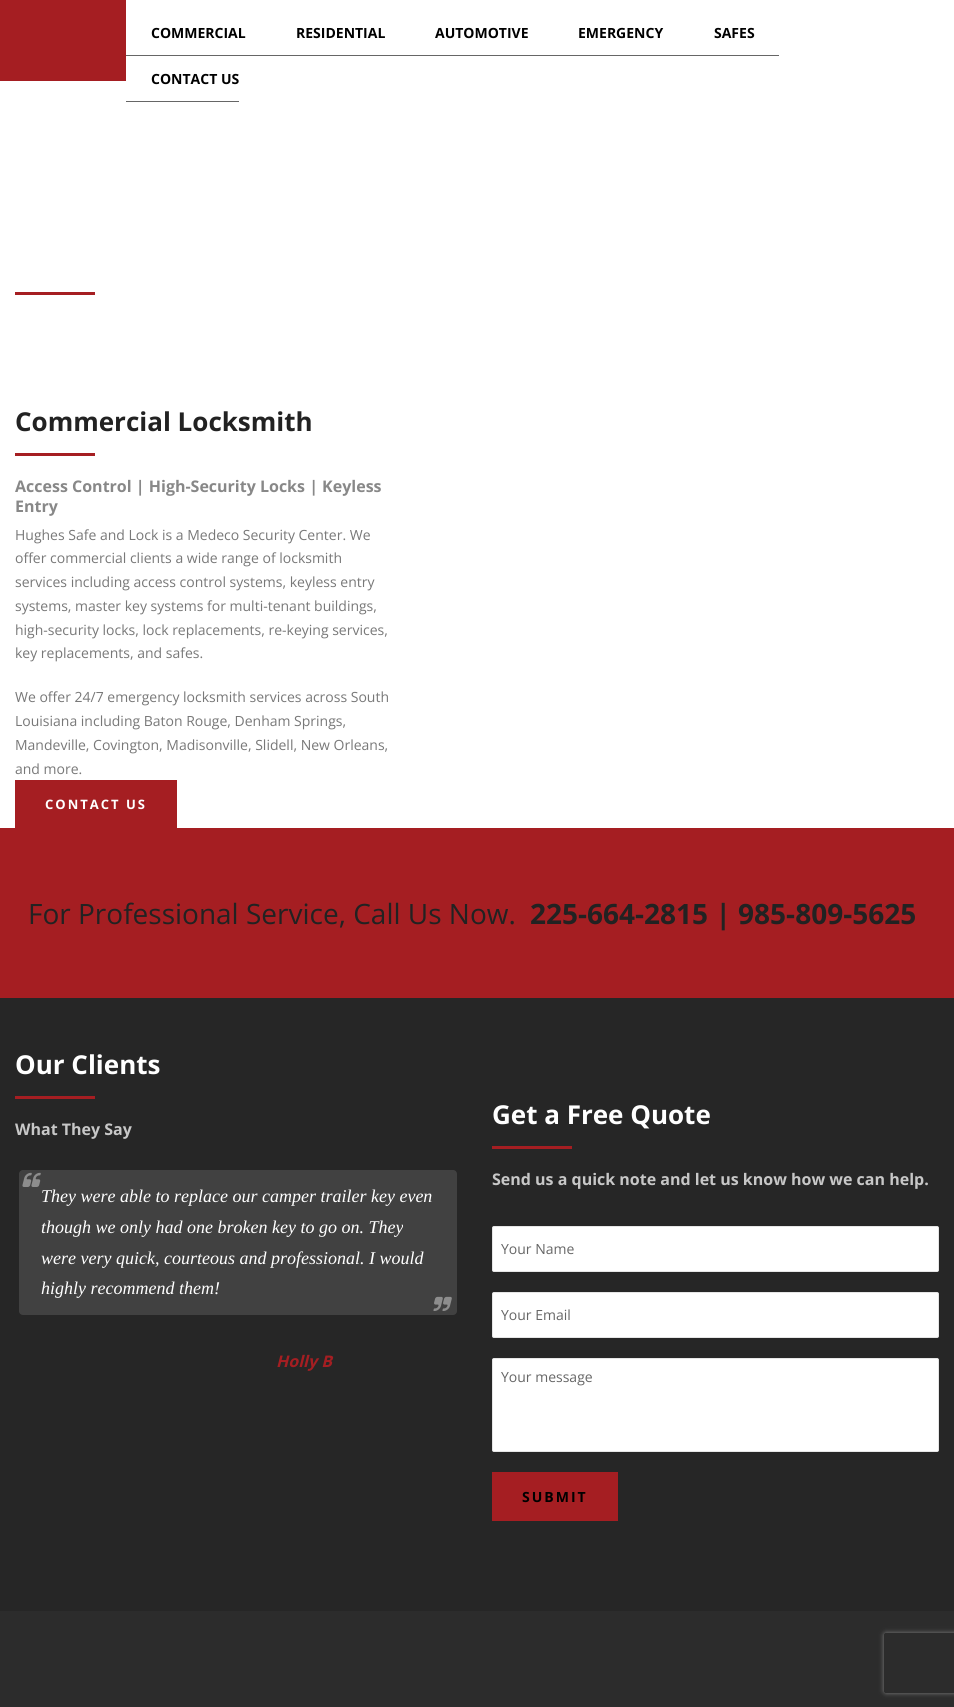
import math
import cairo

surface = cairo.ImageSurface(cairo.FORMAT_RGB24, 954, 1707)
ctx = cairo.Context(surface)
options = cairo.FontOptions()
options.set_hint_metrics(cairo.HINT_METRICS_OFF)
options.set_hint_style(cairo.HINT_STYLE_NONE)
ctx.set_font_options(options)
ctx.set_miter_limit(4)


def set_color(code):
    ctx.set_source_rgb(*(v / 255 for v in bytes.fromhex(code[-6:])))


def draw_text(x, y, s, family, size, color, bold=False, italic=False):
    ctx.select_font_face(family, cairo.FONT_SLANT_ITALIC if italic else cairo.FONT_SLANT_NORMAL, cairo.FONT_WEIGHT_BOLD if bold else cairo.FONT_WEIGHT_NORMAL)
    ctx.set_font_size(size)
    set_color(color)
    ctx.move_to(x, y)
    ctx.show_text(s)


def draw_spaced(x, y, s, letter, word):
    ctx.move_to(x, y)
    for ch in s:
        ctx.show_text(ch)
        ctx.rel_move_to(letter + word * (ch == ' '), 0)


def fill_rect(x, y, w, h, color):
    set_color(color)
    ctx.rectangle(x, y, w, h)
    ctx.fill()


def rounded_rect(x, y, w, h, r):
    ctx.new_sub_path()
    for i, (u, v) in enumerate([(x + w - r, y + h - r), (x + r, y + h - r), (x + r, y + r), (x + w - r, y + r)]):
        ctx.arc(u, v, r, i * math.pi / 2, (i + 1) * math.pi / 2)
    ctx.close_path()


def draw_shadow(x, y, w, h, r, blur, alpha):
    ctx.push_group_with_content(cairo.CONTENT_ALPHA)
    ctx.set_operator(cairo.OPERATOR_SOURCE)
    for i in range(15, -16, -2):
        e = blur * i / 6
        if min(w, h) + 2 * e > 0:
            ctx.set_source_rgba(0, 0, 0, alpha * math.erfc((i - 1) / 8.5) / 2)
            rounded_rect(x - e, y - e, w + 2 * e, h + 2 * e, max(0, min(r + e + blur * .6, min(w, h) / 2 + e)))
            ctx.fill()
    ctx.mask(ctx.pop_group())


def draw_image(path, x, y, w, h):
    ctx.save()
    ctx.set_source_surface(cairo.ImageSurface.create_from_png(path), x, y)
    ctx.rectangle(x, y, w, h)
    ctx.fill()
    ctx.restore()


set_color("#ffffff")
ctx.paint()
fill_rect(0, 0, 126, 81, "#a51e22")
fill_rect(126, 55, 653, 1, "#666666")
draw_text(151, 38, "COMMERCIAL", "Open Sans", 14, "#000000", bold=True)
draw_text(296, 38, "RESIDENTIAL", "Open Sans", 14, "#000000", bold=True)
draw_text(435, 38, "AUTOMOTIVE", "Open Sans", 14, "#000000", bold=True)
draw_text(578, 38, "EMERGENCY", "Open Sans", 14, "#000000", bold=True)
draw_text(714, 38, "SAFES", "Open Sans", 14, "#000000", bold=True)
fill_rect(126, 101, 113, 1, "#666666")
draw_text(151, 84, "CONTACT US", "Open Sans", 14, "#000000", bold=True)
fill_rect(15, 292, 80, 3, "#a51e22")
draw_text(15, 431, "Commercial Locksmith", "Open Sans", 26, "#222222", bold=True)
fill_rect(15, 453, 80, 3, "#a51e22")
draw_text(15, 492, "Access Control | High-Security Locks | Keyless", "Open Sans", 16, "#888888", bold=True)
draw_text(15, 512, "Entry", "Open Sans", 16, "#888888", bold=True)
draw_text(15, 540, "Hughes Safe and Lock is a Medeco Security Center. We", "Open Sans", 14, "#787878")
draw_text(15, 563, "offer commercial clients a wide range of locksmith", "Open Sans", 14, "#787878")
draw_text(15, 587, "services including access control systems, keyless entry", "Open Sans", 14, "#787878")
draw_text(15, 611, "systems, master key systems for multi-tenant buildings,", "Open Sans", 14, "#787878")
draw_text(15, 635, "high-security locks, lock replacements, re-keying services,", "Open Sans", 14, "#787878")
draw_text(15, 658, "key replacements, and safes.", "Open Sans", 14, "#787878")
draw_text(15, 702, "We offer 24/7 emergency locksmith services across South", "Open Sans", 14, "#787878")
draw_text(15, 726, "Louisiana including Baton Rouge, Denham Springs,", "Open Sans", 14, "#787878")
draw_text(15, 750, "Mandeville, Covington, Madisonville, Slidell, New Orleans,", "Open Sans", 14, "#787878")
draw_text(15, 774, "and more.", "Open Sans", 14, "#787878")
fill_rect(15, 780, 162, 48, "#a51e22")
ctx.select_font_face("Open Sans", cairo.FONT_SLANT_NORMAL, cairo.FONT_WEIGHT_BOLD)
ctx.set_font_size(13)
set_color("#ffffff")
draw_spaced(45, 809, "CONTACT US", 2, 0)
fill_rect(0, 828, 954, 170, "#a51e22")
draw_text(28, 924, "For Professional Service, Call Us Now.", "Open Sans", 28, "#222222")
draw_text(530, 924, "225-664-2815 | 985-809-5625", "Open Sans", 28, "#222222", bold=True)
fill_rect(0, 998, 954, 613, "#262626")
draw_text(15, 1074, "Our Clients", "Open Sans", 26, "#ffffff", bold=True)
fill_rect(15, 1096, 80, 3, "#a51e22")
draw_text(15, 1135, "What They Say", "Open Sans", 16, "#c7c7c7", bold=True)
set_color("#414141")
rounded_rect(19, 1170, 438, 145, 4)
ctx.fill()
draw_image("assets/img1.png", 22, 1172, 19, 15)
draw_text(41, 1202, "They were able to replace our camper trailer key even", "Liberation Serif", 18, "#ffffff", italic=True)
draw_text(41, 1233, "though we only had one broken key to go on. They", "Liberation Serif", 18, "#ffffff", italic=True)
draw_text(41, 1264, "were very quick, courteous and professional. I would", "Liberation Serif", 18, "#ffffff", italic=True)
draw_text(41, 1294, "highly recommend them!", "Liberation Serif", 18, "#ffffff", italic=True)
draw_image("assets/img2.png", 433, 1296, 19, 15)
draw_text(276, 1367, "Holly B", "Open Sans", 16, "#a51e22", bold=True, italic=True)
draw_text(492, 1124, "Get a Free Quote", "Open Sans", 26, "#ffffff", bold=True)
fill_rect(492, 1146, 80, 3, "#a51e22")
draw_text(492, 1185, "Send us a quick note and let us know how we can help.", "Open Sans", 16, "#c7c7c7", bold=True)
set_color("#ffffff")
rounded_rect(492.5, 1226.5, 446, 45, 1.5)
ctx.fill_preserve()
set_color("#e5e5e5")
ctx.set_line_width(1)
ctx.stroke()
draw_text(501, 1254, "Your Name", "Open Sans", 14, "#666666")
set_color("#ffffff")
rounded_rect(492.5, 1292.5, 446, 45, 1.5)
ctx.fill_preserve()
set_color("#e5e5e5")
ctx.stroke()
draw_text(501, 1320, "Your Email", "Open Sans", 14, "#666666")
set_color("#ffffff")
rounded_rect(492.5, 1358.5, 446, 93, 1.5)
ctx.fill_preserve()
set_color("#e5e5e5")
ctx.stroke()
draw_text(501, 1382, "Your message", "Open Sans", 14, "#666666")
fill_rect(492, 1472, 126, 49, "#a51e22")
ctx.select_font_face("Open Sans", cairo.FONT_SLANT_NORMAL, cairo.FONT_WEIGHT_BOLD)
set_color("#000000")
draw_spaced(522, 1502, "SUBMIT", 2, 0)
fill_rect(0, 1611, 954, 96, "#2c2c2c")
ctx.save()
ctx.set_fill_rule(cairo.FILL_RULE_EVEN_ODD)
ctx.new_path()
ctx.move_to(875, 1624)
ctx.line_to(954, 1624)
ctx.line_to(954, 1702)
ctx.line_to(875, 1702)
ctx.close_path()
ctx.move_to(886, 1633)
ctx.line_to(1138, 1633)
ctx.curve_to(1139, 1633, 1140, 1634, 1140, 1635)
ctx.line_to(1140, 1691)
ctx.curve_to(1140, 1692, 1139, 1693, 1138, 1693)
ctx.line_to(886, 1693)
ctx.curve_to(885, 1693, 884, 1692, 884, 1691)
ctx.line_to(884, 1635)
ctx.curve_to(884, 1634, 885, 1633, 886, 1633)
ctx.close_path()
ctx.clip()
set_color("#808080")
draw_shadow(884, 1633, 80, 60, 2, 2.5, 1)
ctx.restore()
surface.write_to_png("output.png")
